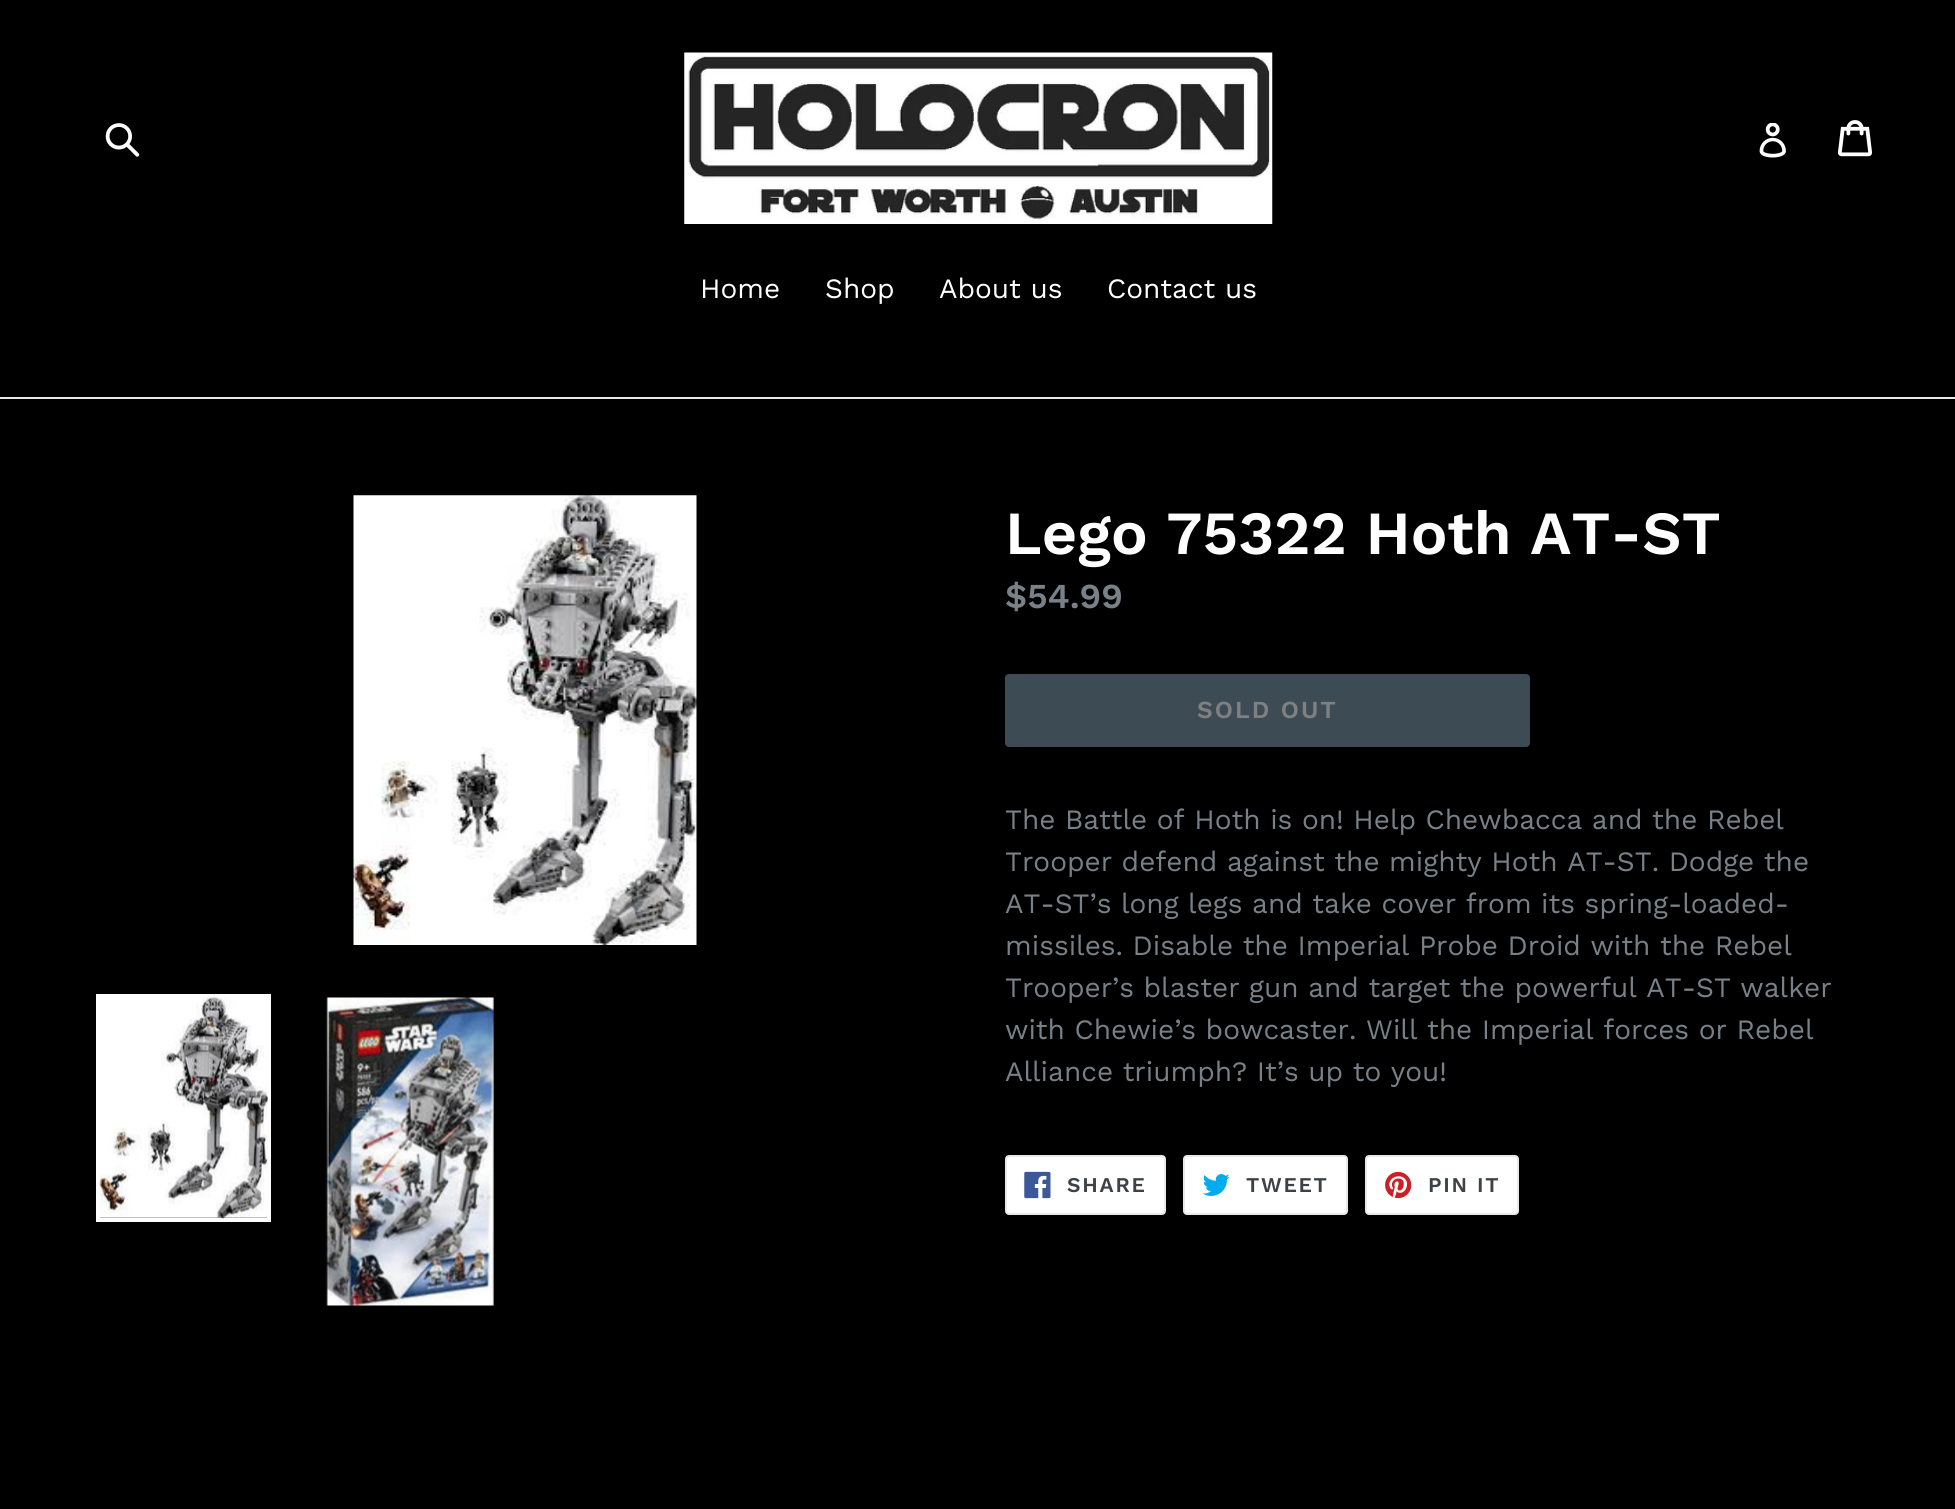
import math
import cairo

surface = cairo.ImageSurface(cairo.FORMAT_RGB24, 1955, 1509)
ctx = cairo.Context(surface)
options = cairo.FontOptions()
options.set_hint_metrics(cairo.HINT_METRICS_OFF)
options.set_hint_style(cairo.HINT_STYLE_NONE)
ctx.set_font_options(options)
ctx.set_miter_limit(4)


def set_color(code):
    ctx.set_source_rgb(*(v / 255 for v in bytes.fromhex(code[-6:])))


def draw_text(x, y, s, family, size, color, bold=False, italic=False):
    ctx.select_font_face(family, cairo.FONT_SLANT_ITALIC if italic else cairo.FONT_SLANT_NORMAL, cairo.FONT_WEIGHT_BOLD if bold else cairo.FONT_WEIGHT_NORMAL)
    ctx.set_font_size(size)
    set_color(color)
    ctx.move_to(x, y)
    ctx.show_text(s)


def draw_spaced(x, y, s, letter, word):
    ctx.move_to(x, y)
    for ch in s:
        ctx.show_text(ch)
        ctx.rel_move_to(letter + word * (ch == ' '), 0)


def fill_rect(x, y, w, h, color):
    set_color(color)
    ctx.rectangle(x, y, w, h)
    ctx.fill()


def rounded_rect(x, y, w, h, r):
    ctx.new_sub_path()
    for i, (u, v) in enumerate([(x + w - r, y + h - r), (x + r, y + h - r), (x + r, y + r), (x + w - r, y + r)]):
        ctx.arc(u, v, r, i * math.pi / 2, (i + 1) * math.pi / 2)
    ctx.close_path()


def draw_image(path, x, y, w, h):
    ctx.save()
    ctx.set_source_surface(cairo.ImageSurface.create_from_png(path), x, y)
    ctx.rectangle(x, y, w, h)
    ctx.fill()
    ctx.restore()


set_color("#000000")
ctx.paint()
draw_image("assets/img1.png", 105, 123, 35, 34)
draw_image("assets/img2.png", 684, 52, 589, 172)
draw_image("assets/img3.png", 1759, 123, 27, 35)
draw_image("assets/img4.png", 1838, 120, 34, 37)
fill_rect(0, 397, 1955, 2, "#e8e9eb")
draw_text(700, 298, "Home", "Work Sans", 28, "#ffffff")
draw_text(825, 298, "Shop", "Work Sans", 28, "#ffffff")
draw_text(939, 298, "About us", "Work Sans", 28, "#ffffff")
draw_text(1107, 298, "Contact us", "Work Sans", 28, "#ffffff")
draw_image("assets/img5.png", 353, 495, 344, 450)
ctx.rectangle(98, 996, 171, 224)
ctx.set_line_width(4)
ctx.stroke()
draw_image("assets/img6.png", 99, 997, 169, 222)
draw_image("assets/img7.png", 326, 997, 168, 309)
draw_text(1005, 554, "Lego 75322 Hoth AT-ST", "Work Sans SemiBold", 61.25, "#ffffff")
draw_text(1005, 608, "$54.99", "Work Sans SemiBold", 35, "#788188")
set_color("#3c4b54")
rounded_rect(1005, 674, 525, 73, 4)
ctx.fill()
ctx.set_font_size(24.5)
set_color("#808080")
draw_spaced(1197, 718, "SOLD OUT", 2, 0)
draw_text(1005, 829, "The Battle of Hoth is on! Help Chewbacca and the Rebel", "Work Sans", 28, "#788188")
draw_text(1005, 871, "Trooper defend against the mighty Hoth AT-ST. Dodge the", "Work Sans", 28, "#788188")
draw_text(1005, 913, "AT-ST’s long legs and take cover from its spring-loaded-", "Work Sans", 28, "#788188")
draw_text(1005, 955, "missiles. Disable the Imperial Probe Droid with the Rebel", "Work Sans", 28, "#788188")
draw_text(1005, 997, "Trooper’s blaster gun and target the powerful AT-ST walker", "Work Sans", 28, "#788188")
draw_text(1005, 1039, "with Chewie’s bowcaster. Will the Imperial forces or Rebel", "Work Sans", 28, "#788188")
draw_text(1005, 1081, "Alliance triumph? It’s up to you!", "Work Sans", 28, "#788188")
set_color("#ffffff")
rounded_rect(1006, 1156, 159, 58, 3)
ctx.fill_preserve()
set_color("#e8e9eb")
ctx.set_line_width(2)
ctx.stroke()
draw_image("assets/img8.png", 1024, 1171, 27, 28)
ctx.select_font_face("Work Sans SemiBold")
ctx.set_font_size(21)
set_color("#3d4246")
draw_spaced(1067, 1192, "SHARE", 1.75, 0)
set_color("#ffffff")
rounded_rect(1184, 1156, 163, 58, 3)
ctx.fill_preserve()
set_color("#e8e9eb")
ctx.stroke()
draw_image("assets/img9.png", 1202, 1174, 28, 22)
set_color("#3d4246")
draw_spaced(1246, 1192, "TWEET", 1.75, 0)
set_color("#ffffff")
rounded_rect(1366, 1156, 152, 58, 3)
ctx.fill_preserve()
set_color("#e8e9eb")
ctx.stroke()
draw_image("assets/img10.png", 1385, 1171, 27, 28)
set_color("#3d4246")
draw_spaced(1428, 1192, "PIN IT", 1.75, 0)
surface.write_to_png("output.png")
